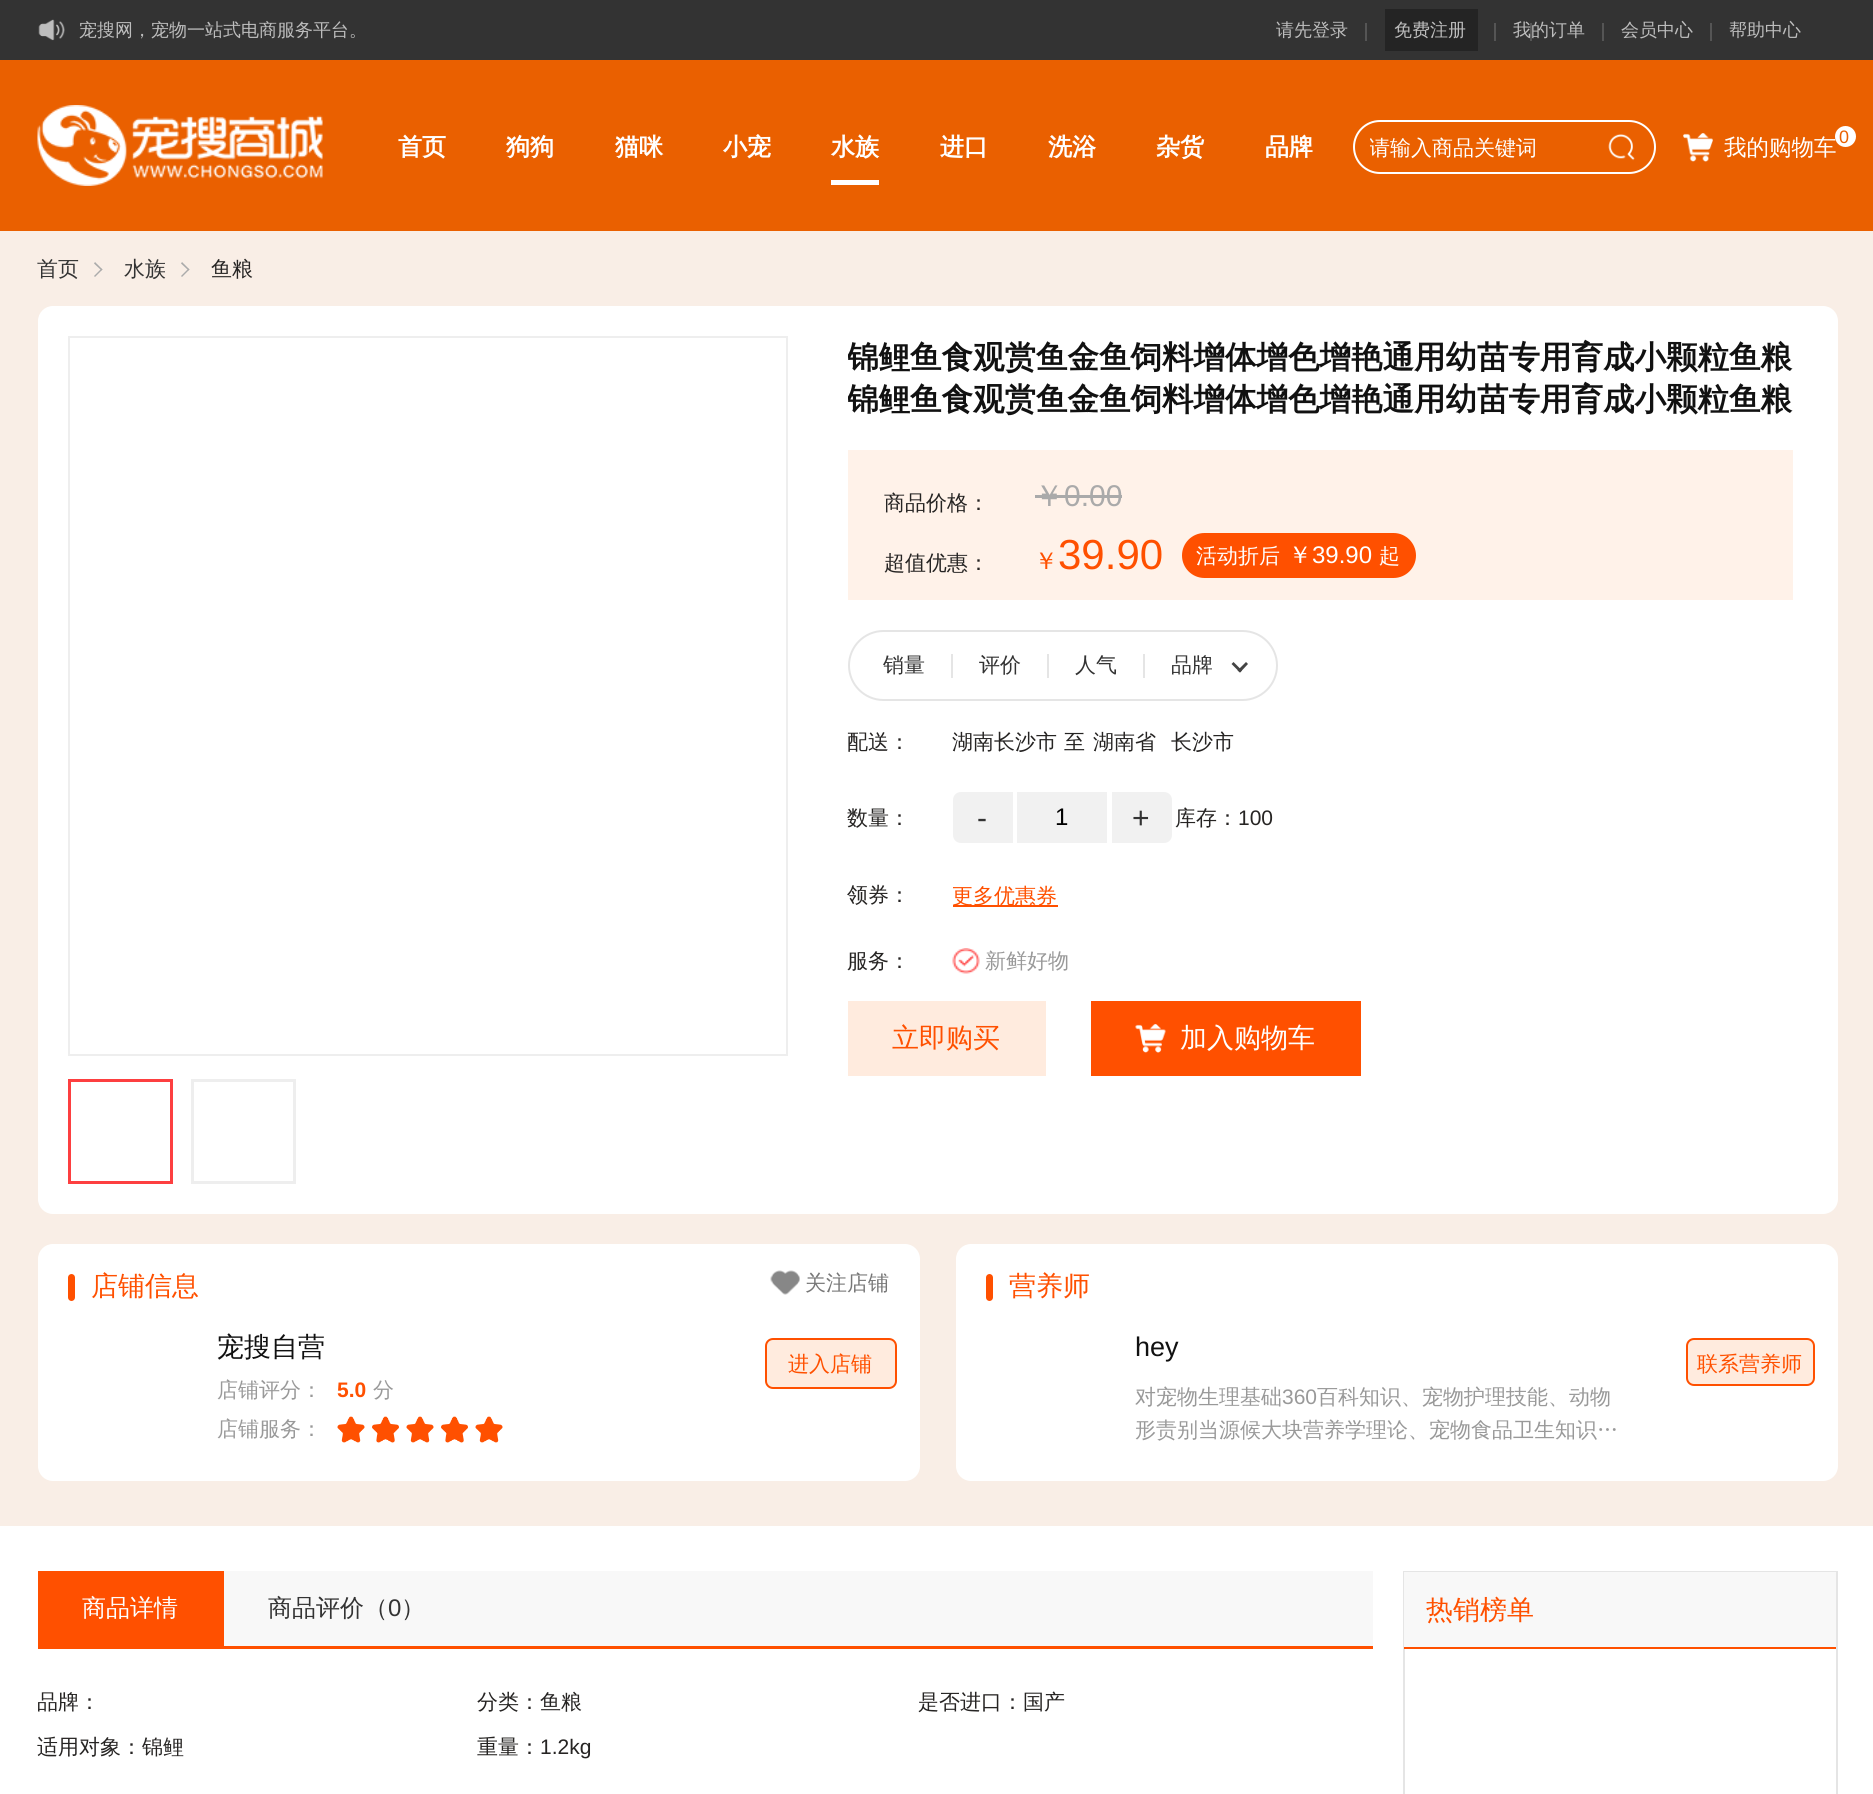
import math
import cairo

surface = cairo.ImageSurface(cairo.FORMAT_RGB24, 1873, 1794)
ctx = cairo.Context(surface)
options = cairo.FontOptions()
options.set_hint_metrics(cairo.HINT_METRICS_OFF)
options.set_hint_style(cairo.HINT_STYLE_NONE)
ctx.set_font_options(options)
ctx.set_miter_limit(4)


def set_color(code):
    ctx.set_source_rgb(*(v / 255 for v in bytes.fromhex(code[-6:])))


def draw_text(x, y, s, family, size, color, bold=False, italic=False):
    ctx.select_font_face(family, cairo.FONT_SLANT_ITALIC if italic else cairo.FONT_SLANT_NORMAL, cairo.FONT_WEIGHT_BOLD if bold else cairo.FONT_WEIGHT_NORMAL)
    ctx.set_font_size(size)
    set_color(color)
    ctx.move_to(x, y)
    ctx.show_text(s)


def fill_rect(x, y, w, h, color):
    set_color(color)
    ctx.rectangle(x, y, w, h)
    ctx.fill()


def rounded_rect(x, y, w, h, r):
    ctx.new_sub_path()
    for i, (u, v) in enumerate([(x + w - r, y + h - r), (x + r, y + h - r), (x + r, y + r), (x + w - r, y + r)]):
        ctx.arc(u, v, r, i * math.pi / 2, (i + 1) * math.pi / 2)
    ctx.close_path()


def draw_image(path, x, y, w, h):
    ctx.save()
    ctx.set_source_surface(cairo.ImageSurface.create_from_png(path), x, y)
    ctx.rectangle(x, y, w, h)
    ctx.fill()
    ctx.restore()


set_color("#ffffff")
ctx.paint()
fill_rect(0, 0, 1873, 60, "#333333")
draw_image("assets/img1.png", 38, 19, 27, 22)
draw_text(79, 36, "宠搜网，宠物一站式电商服务平台。", "WenQuanYi Zen Hei Medium", 18, "#bdbdbd")
draw_text(1276, 36, "请先登录", "WenQuanYi Zen Hei Medium", 18, "#bdbdbd")
fill_rect(1365, 23, 2, 18, "#555555")
fill_rect(1385, 9, 93, 42, "#242424")
draw_text(1394, 36, "免费注册", "WenQuanYi Zen Hei Medium", 18, "#bdbdbd")
fill_rect(1494, 23, 2, 18, "#555555")
fill_rect(1530, 23, 2, 18, "#555555")
draw_text(1513, 36, "我的订单", "WenQuanYi Zen Hei Medium", 18, "#bdbdbd")
fill_rect(1602, 23, 2, 18, "#555555")
draw_text(1621, 36, "会员中心", "WenQuanYi Zen Hei Medium", 18, "#bdbdbd")
fill_rect(1710, 23, 2, 18, "#555555")
draw_text(1729, 36, "帮助中心", "WenQuanYi Zen Hei Medium", 18, "#bdbdbd")
fill_rect(0, 60, 1873, 171, "#ea6000")
draw_image("assets/img2.png", 37, 105, 286, 81)
draw_text(398, 155, "首页", "WenQuanYi Zen Hei", 24, "#ffffff", bold=True)
draw_text(506, 155, "狗狗", "WenQuanYi Zen Hei", 24, "#ffffff", bold=True)
draw_text(615, 155, "猫咪", "WenQuanYi Zen Hei", 24, "#ffffff", bold=True)
draw_text(723, 155, "小宠", "WenQuanYi Zen Hei", 24, "#ffffff", bold=True)
draw_text(831, 155, "水族", "WenQuanYi Zen Hei", 24, "#ffffff", bold=True)
fill_rect(831, 180, 48, 5, "#ffffff")
draw_text(940, 155, "进口", "WenQuanYi Zen Hei", 24, "#ffffff", bold=True)
draw_text(1048, 155, "洗浴", "WenQuanYi Zen Hei", 24, "#ffffff", bold=True)
draw_text(1156, 155, "杂货", "WenQuanYi Zen Hei", 24, "#ffffff", bold=True)
draw_text(1265, 155, "品牌", "WenQuanYi Zen Hei", 24, "#ffffff", bold=True)
rounded_rect(1354, 121, 301, 52, 26)
ctx.stroke()
ctx.save()
ctx.rectangle(1370, 135, 225, 27)
ctx.clip()
draw_text(1369, 155, "请输入商品关键词", "WenQuanYi Zen Hei Medium", 21, "#ffffff")
ctx.restore()
draw_image("assets/img3.png", 1608, 134, 27, 27)
draw_image("assets/img4.png", 1683, 133, 30, 29)
draw_text(1724, 155, "我的购物车", "WenQuanYi Zen Hei Medium", 22.5, "#ffffff")
ctx.new_path()
ctx.arc(1845.5, 136.5, 10.5, 0, 2 * math.pi)
ctx.fill()
draw_text(1839, 143, "0", "Liberation Sans", 18, "#ea6000")
fill_rect(0, 231, 1873, 1295, "#f9eee6")
draw_text(37, 276, "首页", "WenQuanYi Zen Hei Medium", 21, "#333333")
set_color("#ababab")
ctx.new_path()
ctx.move_to(95, 262)
ctx.line_to(102.5, 269.5)
ctx.line_to(101.5, 270.5)
ctx.line_to(94, 263.5)
ctx.close_path()
ctx.fill()
ctx.new_path()
ctx.move_to(101.5, 268.5)
ctx.line_to(102.5, 269.5)
ctx.line_to(95, 277)
ctx.line_to(94, 276)
ctx.close_path()
ctx.fill()
draw_text(124, 276, "水族", "WenQuanYi Zen Hei Medium", 21, "#333333")
set_color("#ababab")
ctx.new_path()
ctx.move_to(182, 262)
ctx.line_to(189.5, 269.5)
ctx.line_to(188.5, 270.5)
ctx.line_to(181, 263.5)
ctx.close_path()
ctx.fill()
ctx.new_path()
ctx.move_to(188.5, 268.5)
ctx.line_to(189.5, 269.5)
ctx.line_to(182, 277)
ctx.line_to(181, 276)
ctx.close_path()
ctx.fill()
draw_text(211, 276, "鱼粮", "WenQuanYi Zen Hei Medium", 21, "#262423")
set_color("#ffffff")
rounded_rect(38, 306, 1800, 908, 15)
ctx.fill()
ctx.rectangle(69, 337, 718, 718)
set_color("#eeeeee")
ctx.stroke()
ctx.rectangle(69.5, 1080.5, 102, 102)
set_color("#fd3f40")
ctx.set_line_width(3)
ctx.stroke()
ctx.rectangle(192.5, 1080.5, 102, 102)
set_color("#eeeeee")
ctx.stroke()
ctx.save()
ctx.rectangle(848, 336, 945, 84)
ctx.clip()
draw_text(847, 368, "锦鲤鱼食观赏鱼金鱼饲料增体增色增艳通用幼苗专用育成小颗粒鱼粮", "WenQuanYi Zen Hei", 31.5, "#111111", bold=True)
draw_text(847, 410, "锦鲤鱼食观赏鱼金鱼饲料增体增色增艳通用幼苗专用育成小颗粒鱼粮", "WenQuanYi Zen Hei", 31.5, "#111111", bold=True)
ctx.restore()
fill_rect(848, 450, 945, 150, "#fff2e9")
draw_text(884, 510, "商品价格：", "WenQuanYi Zen Hei Medium", 21, "#262423")
draw_text(1034, 506, "￥", "WenQuanYi Zen Hei Medium", 30, "#aaaaaa")
fill_rect(1035, 495, 30, 3, "#aaaaaa")
draw_text(1064, 506, "0.00", "Liberation Sans", 30, "#aaaaaa")
fill_rect(1065, 495, 57, 3, "#aaaaaa")
draw_text(884, 570, "超值优惠：", "WenQuanYi Zen Hei Medium", 21, "#262423")
draw_text(1034, 569, "￥", "WenQuanYi Zen Hei Medium", 24, "#ff5000")
draw_text(1058, 569, "39.90", "Liberation Sans", 42, "#ff5000")
rounded_rect(1182, 533, 234, 45, 22.5)
ctx.fill()
draw_text(1196, 563, "活动折后", "WenQuanYi Zen Hei Medium", 21, "#ffffff")
draw_text(1288, 563, "￥", "WenQuanYi Zen Hei Medium", 24, "#ffffff")
draw_text(1312, 563, "39.90", "Liberation Sans", 24, "#ffffff")
draw_text(1379, 563, "起", "WenQuanYi Zen Hei Medium", 21, "#ffffff")
rounded_rect(849, 631, 428, 69, 34.5)
set_color("#e5e5e5")
ctx.set_line_width(2)
ctx.stroke()
draw_text(883, 672, "销量", "WenQuanYi Zen Hei Medium", 21, "#333333")
fill_rect(951, 654, 2, 24, "#e5e5e5")
draw_text(979, 672, "评价", "WenQuanYi Zen Hei Medium", 21, "#333333")
fill_rect(1047, 654, 2, 24, "#e5e5e5")
draw_text(1075, 672, "人气", "WenQuanYi Zen Hei Medium", 21, "#333333")
fill_rect(1143, 654, 2, 24, "#e5e5e5")
draw_text(1171, 672, "品牌", "WenQuanYi Zen Hei Medium", 21, "#333333")
set_color("#444444")
ctx.new_path()
ctx.move_to(1248, 664)
ctx.line_to(1240, 672.5)
ctx.line_to(1237.5, 670.5)
ctx.line_to(1246, 662)
ctx.close_path()
ctx.fill()
ctx.new_path()
ctx.move_to(1242, 670.5)
ctx.line_to(1240, 672.5)
ctx.line_to(1231.5, 664)
ctx.line_to(1233.5, 662)
ctx.close_path()
ctx.fill()
draw_text(847, 749, "配送：", "WenQuanYi Zen Hei Medium", 21, "#262423")
draw_text(952, 749, "湖南长沙市", "WenQuanYi Zen Hei Medium", 21, "#262423")
draw_text(1064, 749, "至", "WenQuanYi Zen Hei Medium", 21, "#262423")
draw_text(1093, 749, "湖南省", "WenQuanYi Zen Hei Medium", 21, "#262423")
draw_text(1171, 749, "长沙市", "WenQuanYi Zen Hei Medium", 21, "#262423")
draw_text(847, 825, "数量：", "WenQuanYi Zen Hei Medium", 21, "#262423")
set_color("#f1f1f1")
ctx.new_path()
ctx.move_to(961, 792)
ctx.line_to(1013, 792)
ctx.line_to(1013, 843)
ctx.line_to(961, 843)
ctx.curve_to(956.5, 843, 953, 839.5, 953, 835)
ctx.line_to(953, 800)
ctx.curve_to(953, 795.5, 956.5, 792, 961, 792)
ctx.close_path()
ctx.fill()
draw_text(977, 828, "-", "Liberation Sans", 30, "#333333")
fill_rect(1017, 792, 90, 51, "#f1f1f1")
draw_text(1055, 825, "1", "Liberation Sans", 24, "#000000")
set_color("#f1f1f1")
ctx.new_path()
ctx.move_to(1112, 792)
ctx.line_to(1164, 792)
ctx.curve_to(1168.5, 792, 1172, 795.5, 1172, 800)
ctx.line_to(1172, 835)
ctx.curve_to(1172, 839.5, 1168.5, 843, 1164, 843)
ctx.line_to(1112, 843)
ctx.close_path()
ctx.fill()
draw_text(1132, 828, "+", "Liberation Sans", 30, "#333333")
draw_text(1175, 825, "库存：", "WenQuanYi Zen Hei Medium", 21, "#262423")
draw_text(1238, 825, "100", "Liberation Sans", 21, "#262423")
draw_text(847, 902, "领券：", "WenQuanYi Zen Hei Medium", 21, "#262423")
fill_rect(953, 905, 105, 2, "#ff5000")
draw_text(952, 903, "更多优惠券", "WenQuanYi Zen Hei Medium", 21, "#ff5000")
draw_text(847, 968, "服务：", "WenQuanYi Zen Hei Medium", 21, "#262423")
draw_image("assets/img5.png", 952, 948, 28, 26)
draw_text(985, 968, "新鲜好物", "WenQuanYi Zen Hei Medium", 21, "#999999")
fill_rect(848, 1001, 198, 75, "#ffebde")
draw_text(892, 1047, "立即购买", "WenQuanYi Zen Hei Medium", 27, "#ff5000")
fill_rect(1091, 1001, 270, 75, "#ff5000")
draw_image("assets/img6.png", 1135, 1024, 31, 29)
draw_text(1180, 1047, "加入购物车", "WenQuanYi Zen Hei Medium", 27, "#ffffff")
rounded_rect(38, 1244, 882, 237, 15)
ctx.fill()
set_color("#ff5000")
rounded_rect(68, 1274, 7, 27, 3.5)
ctx.fill()
draw_text(91, 1295, "店铺信息", "WenQuanYi Zen Hei Medium", 27, "#ff5000")
draw_image("assets/img7.png", 770, 1270, 30, 25)
draw_text(805, 1290, "关注店铺", "WenQuanYi Zen Hei Medium", 21, "#777777")
draw_text(217, 1356, "宠搜自营", "WenQuanYi Zen Hei Medium", 27, "#111111")
draw_text(217, 1397, "店铺评分：", "WenQuanYi Zen Hei Medium", 21, "#999999")
draw_text(337, 1397, "5.0", "Liberation Sans", 21, "#ff5000", bold=True)
draw_text(373, 1397, "分", "WenQuanYi Zen Hei Medium", 21, "#999999")
draw_text(217, 1436, "店铺服务：", "WenQuanYi Zen Hei Medium", 21, "#999999")
draw_image("assets/img8.png", 337, 1416, 28, 27)
draw_image("assets/img9.png", 372, 1416, 27, 27)
draw_image("assets/img10.png", 406, 1416, 28, 27)
draw_image("assets/img9.png", 441, 1416, 27, 27)
draw_image("assets/img8.png", 475, 1416, 28, 27)
set_color("#ffebde")
rounded_rect(766, 1339, 130, 49, 7)
ctx.fill_preserve()
set_color("#ff5000")
ctx.stroke()
draw_text(788, 1371, "进入店铺", "WenQuanYi Zen Hei Medium", 21, "#ff5000")
set_color("#ffffff")
rounded_rect(956, 1244, 882, 237, 15)
ctx.fill()
set_color("#ff5000")
rounded_rect(986, 1274, 7, 27, 3.5)
ctx.fill()
draw_text(1009, 1295, "营养师", "WenQuanYi Zen Hei Medium", 27, "#ff5000")
draw_text(1135, 1356, "hey", "Liberation Sans", 27, "#111111")
draw_text(1135, 1404, "对宠物生理基础", "WenQuanYi Zen Hei Medium", 21, "#999999")
draw_text(1282, 1404, "360", "Liberation Sans", 21, "#999999")
draw_text(1317, 1404, "百科知识、宠物护理技能、动物", "WenQuanYi Zen Hei Medium", 21, "#999999")
draw_text(1135, 1437, "形责别当源候大块营养学理论、宠物食品卫生知识…", "WenQuanYi Zen Hei Medium", 21, "#999999")
set_color("#ffebde")
rounded_rect(1687, 1339, 127, 46, 7)
ctx.fill_preserve()
set_color("#ff5000")
ctx.stroke()
draw_text(1697, 1371, "联系营养师", "WenQuanYi Zen Hei Medium", 21, "#ff5000")
fill_rect(224, 1571, 1149, 75, "#f8f8f8")
fill_rect(38, 1646, 1335, 3, "#ff5000")
fill_rect(38, 1571, 186, 75, "#ff5000")
draw_text(82, 1616, "商品详情", "WenQuanYi Zen Hei Medium", 24, "#ffffff")
draw_text(268, 1616, "商品评价（", "WenQuanYi Zen Hei Medium", 24, "#333333")
draw_text(388, 1616, "0", "Liberation Sans", 24, "#333333")
draw_text(401, 1616, "）", "WenQuanYi Zen Hei Medium", 24, "#333333")
draw_text(37, 1709, "品牌：", "WenQuanYi Zen Hei Medium", 21, "#262423")
draw_text(477, 1709, "分类：鱼粮", "WenQuanYi Zen Hei Medium", 21, "#262423")
draw_text(918, 1709, "是否进口：国产", "WenQuanYi Zen Hei Medium", 21, "#262423")
draw_text(37, 1754, "适用对象：锦鲤", "WenQuanYi Zen Hei Medium", 21, "#262423")
draw_text(477, 1754, "重量：", "WenQuanYi Zen Hei Medium", 21, "#262423")
draw_text(540, 1754, "1.2kg", "Liberation Sans", 21, "#262423")
ctx.rectangle(1404, 1572, 433, 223)
set_color("#e5e5e5")
ctx.stroke()
fill_rect(1404, 1572, 432, 75, "#f8f8f8")
fill_rect(1404, 1647, 432, 2, "#ff5000")
draw_text(1426, 1619, "热销榜单", "WenQuanYi Zen Hei Medium", 27, "#ff5000")
surface.write_to_png("output.png")
